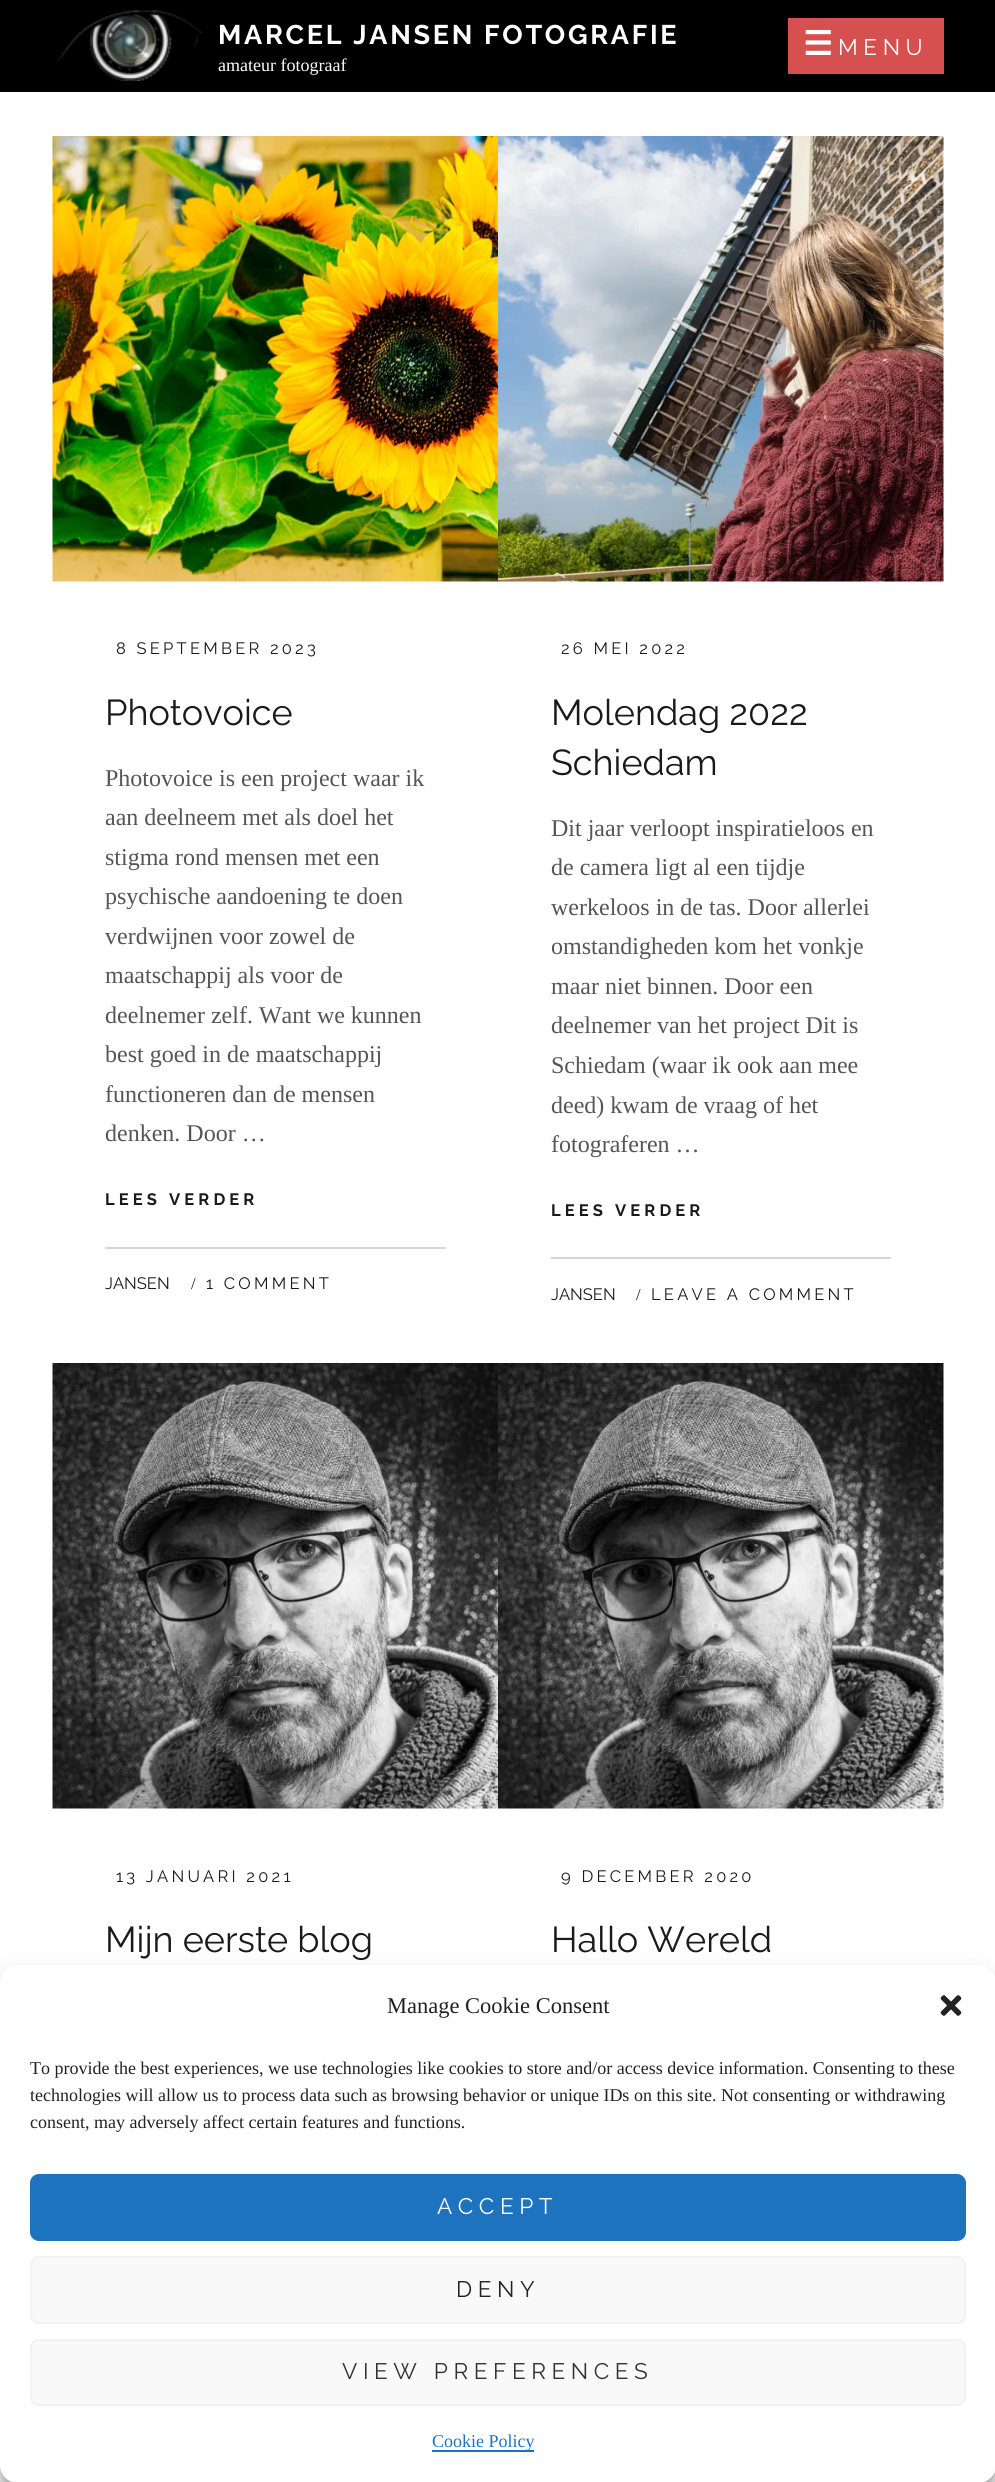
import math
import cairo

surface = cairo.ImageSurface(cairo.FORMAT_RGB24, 995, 2482)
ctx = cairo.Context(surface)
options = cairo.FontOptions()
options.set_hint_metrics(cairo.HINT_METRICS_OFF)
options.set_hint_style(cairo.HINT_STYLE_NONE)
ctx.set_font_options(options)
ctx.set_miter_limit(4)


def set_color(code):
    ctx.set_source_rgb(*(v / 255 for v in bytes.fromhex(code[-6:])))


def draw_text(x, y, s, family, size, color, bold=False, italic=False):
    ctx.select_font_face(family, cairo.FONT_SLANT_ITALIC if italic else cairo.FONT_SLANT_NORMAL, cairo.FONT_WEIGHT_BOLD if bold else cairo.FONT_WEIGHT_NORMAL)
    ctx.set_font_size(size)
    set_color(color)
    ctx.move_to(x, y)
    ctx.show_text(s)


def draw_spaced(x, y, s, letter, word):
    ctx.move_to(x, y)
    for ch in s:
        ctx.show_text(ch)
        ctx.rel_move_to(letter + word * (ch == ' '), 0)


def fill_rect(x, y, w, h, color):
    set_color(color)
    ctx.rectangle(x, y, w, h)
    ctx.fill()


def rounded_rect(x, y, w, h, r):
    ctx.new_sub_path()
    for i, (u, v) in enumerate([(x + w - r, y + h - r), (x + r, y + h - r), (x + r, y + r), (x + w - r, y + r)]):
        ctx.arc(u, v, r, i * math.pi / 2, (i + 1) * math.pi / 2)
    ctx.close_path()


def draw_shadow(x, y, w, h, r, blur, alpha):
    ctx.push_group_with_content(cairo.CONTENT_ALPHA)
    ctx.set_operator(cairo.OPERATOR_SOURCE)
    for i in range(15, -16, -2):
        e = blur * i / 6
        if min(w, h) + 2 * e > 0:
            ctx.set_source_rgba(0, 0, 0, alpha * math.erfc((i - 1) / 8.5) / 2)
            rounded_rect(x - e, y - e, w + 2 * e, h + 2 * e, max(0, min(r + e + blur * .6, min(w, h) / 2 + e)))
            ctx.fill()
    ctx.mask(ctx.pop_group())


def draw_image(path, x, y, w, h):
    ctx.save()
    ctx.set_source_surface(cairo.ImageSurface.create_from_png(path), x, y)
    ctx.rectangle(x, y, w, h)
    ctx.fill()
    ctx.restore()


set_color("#ffffff")
ctx.paint()
fill_rect(0, 0, 995, 92, "#000000")
draw_image("assets/img1.png", 57, 10, 146, 71)
ctx.select_font_face("Raleway", cairo.FONT_SLANT_NORMAL, cairo.FONT_WEIGHT_BOLD)
ctx.set_font_size(27)
set_color("#ffffff")
draw_spaced(218, 44, "MARCEL JANSEN FOTOGRAFIE", 2.7, 0)
draw_text(218, 71, "amateur fotograaf", "Liberation Serif", 18, "#ffffff")
fill_rect(788, 18, 156, 56, "#d65050")
ctx.select_font_face("DejaVu Sans", cairo.FONT_SLANT_NORMAL, cairo.FONT_WEIGHT_BOLD)
ctx.set_font_size(33)
set_color("#ffffff")
draw_spaced(803, 55, "☰", 5.6, 0)
ctx.select_font_face("Raleway")
ctx.set_font_size(22.5)
draw_spaced(838, 55, "MENU", 5.6, 0)
draw_image("assets/img2.png", 52, 136, 446, 446)
ctx.set_font_size(16.5)
set_color("#1a1a1a")
draw_spaced(116, 654, "8 SEPTEMBER 2023", 3.25, 0)
draw_text(105, 725, "Photovoice", "Raleway", 36, "#1a1a1a")
draw_text(105, 786, "Photovoice is een project waar ik", "Liberation Serif", 24, "#555555")
draw_text(105, 825, "aan deelneem met als doel het", "Liberation Serif", 24, "#555555")
draw_text(105, 865, "stigma rond mensen met een", "Liberation Serif", 24, "#555555")
draw_text(105, 904, "psychische aandoening te doen", "Liberation Serif", 24, "#555555")
draw_text(105, 944, "verdwijnen voor zowel de", "Liberation Serif", 24, "#555555")
draw_text(105, 983, "maatschappij als voor de", "Liberation Serif", 24, "#555555")
draw_text(105, 1023, "deelnemer zelf. Want we kunnen", "Liberation Serif", 24, "#555555")
draw_text(105, 1062, "best goed in de maatschappij", "Liberation Serif", 24, "#555555")
draw_text(105, 1102, "functioneren dan de mensen", "Liberation Serif", 24, "#555555")
draw_text(105, 1141, "denken. Door …", "Liberation Serif", 24, "#555555")
ctx.select_font_face("Raleway", cairo.FONT_SLANT_NORMAL, cairo.FONT_WEIGHT_BOLD)
ctx.set_font_size(16.5)
set_color("#1a1a1a")
draw_spaced(105, 1205, "LEES VERDER", 4.1, 0)
fill_rect(105, 1247, 341, 2, "#d5d5d5")
draw_text(105, 1289, "JANSEN", "Raleway", 16.5, "#1a1a1a")
ctx.select_font_face("Liberation Serif")
draw_spaced(191, 1289, "/", 3.25, 0)
ctx.select_font_face("Raleway")
draw_spaced(206, 1289, "1 COMMENT", 3.25, 0)
draw_image("assets/img3.png", 498, 136, 446, 446)
draw_spaced(561, 654, "26 MEI 2022", 3.25, 0)
draw_text(551, 725, "Molendag 2022", "Raleway", 36, "#1a1a1a")
draw_text(551, 775, "Schiedam", "Raleway", 36, "#1a1a1a")
draw_text(551, 836, "Dit jaar verloopt inspiratieloos en", "Liberation Serif", 24, "#555555")
draw_text(551, 875, "de camera ligt al een tijdje", "Liberation Serif", 24, "#555555")
draw_text(551, 915, "werkeloos in de tas. Door allerlei", "Liberation Serif", 24, "#555555")
draw_text(551, 954, "omstandigheden kom het vonkje", "Liberation Serif", 24, "#555555")
draw_text(551, 994, "maar niet binnen. Door een", "Liberation Serif", 24, "#555555")
draw_text(551, 1033, "deelnemer van het project Dit is", "Liberation Serif", 24, "#555555")
draw_text(551, 1073, "Schiedam (waar ik ook aan mee", "Liberation Serif", 24, "#555555")
draw_text(551, 1113, "deed) kwam de vraag of het", "Liberation Serif", 24, "#555555")
draw_text(551, 1152, "fotograferen …", "Liberation Serif", 24, "#555555")
ctx.select_font_face("Raleway", cairo.FONT_SLANT_NORMAL, cairo.FONT_WEIGHT_BOLD)
ctx.set_font_size(16.5)
set_color("#1a1a1a")
draw_spaced(551, 1216, "LEES VERDER", 4.1, 0)
fill_rect(551, 1257, 340, 2, "#d5d5d5")
draw_text(551, 1300, "JANSEN", "Raleway", 16.5, "#1a1a1a")
ctx.select_font_face("Liberation Serif")
draw_spaced(636, 1300, "/", 3.25, 0)
ctx.select_font_face("Raleway")
draw_spaced(651, 1300, "LEAVE A COMMENT", 3.25, 0)
draw_image("assets/img4.png", 52, 1363, 446, 446)
draw_spaced(116, 1882, "13 JANUARI 2021", 3.25, 0)
draw_text(105, 1952, "Mijn eerste blog", "Raleway", 36, "#1a1a1a")
draw_image("assets/img5.png", 498, 1363, 446, 446)
ctx.set_font_size(16.5)
draw_spaced(561, 1882, "9 DECEMBER 2020", 3.25, 0)
draw_text(551, 1952, "Hallo Wereld", "Raleway", 36, "#1a1a1a")
set_color("#000000")
draw_shadow(0, 1974, 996, 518, 18, 4.5, 0.23)
draw_shadow(0, 1980, 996, 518, 18, 15, 0.19)
set_color("#ffffff")
rounded_rect(0, 1965, 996, 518, 18)
ctx.fill()
draw_text(387, 2013, "Manage Cookie Consent", "Liberation Serif", 22.5, "#222222")
draw_image("assets/img6.png", 940, 1995, 22, 21)
draw_text(30, 2074, "To provide the best experiences, we use technologies like cookies to store and/or access device information. Consenting to these", "Liberation Serif", 18, "#222222")
draw_text(30, 2101, "technologies will allow us to process data such as browsing behavior or unique IDs on this site. Not consenting or withdrawing", "Liberation Serif", 18, "#222222")
draw_text(30, 2128, "consent, may adversely affect certain features and functions.", "Liberation Serif", 18, "#222222")
set_color("#1e73be")
rounded_rect(31, 2175, 934, 65, 8)
ctx.fill_preserve()
ctx.stroke()
ctx.select_font_face("Raleway")
ctx.set_font_size(22.5)
set_color("#ffffff")
draw_spaced(437, 2214, "ACCEPT", 5.6, 0)
set_color("#f9f9f9")
rounded_rect(31, 2257, 934, 66, 8)
ctx.fill_preserve()
set_color("#f2f2f2")
ctx.stroke()
set_color("#222222")
draw_spaced(456, 2297, "DENY", 5.6, 0)
set_color("#f9f9f9")
rounded_rect(31, 2340, 934, 65, 8)
ctx.fill_preserve()
set_color("#f2f2f2")
ctx.stroke()
set_color("#333333")
draw_spaced(342, 2379, "VIEW PREFERENCES", 5.6, 0)
fill_rect(432, 2450, 102, 2, "#1e73be")
draw_text(432, 2447, "Cookie Policy", "Liberation Serif", 18, "#1e73be")
surface.write_to_png("output.png")
